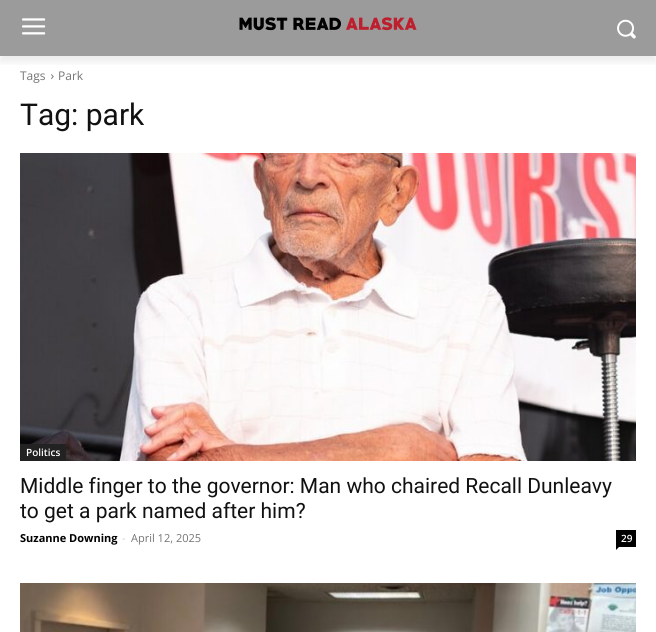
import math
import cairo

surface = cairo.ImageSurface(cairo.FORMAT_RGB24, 656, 632)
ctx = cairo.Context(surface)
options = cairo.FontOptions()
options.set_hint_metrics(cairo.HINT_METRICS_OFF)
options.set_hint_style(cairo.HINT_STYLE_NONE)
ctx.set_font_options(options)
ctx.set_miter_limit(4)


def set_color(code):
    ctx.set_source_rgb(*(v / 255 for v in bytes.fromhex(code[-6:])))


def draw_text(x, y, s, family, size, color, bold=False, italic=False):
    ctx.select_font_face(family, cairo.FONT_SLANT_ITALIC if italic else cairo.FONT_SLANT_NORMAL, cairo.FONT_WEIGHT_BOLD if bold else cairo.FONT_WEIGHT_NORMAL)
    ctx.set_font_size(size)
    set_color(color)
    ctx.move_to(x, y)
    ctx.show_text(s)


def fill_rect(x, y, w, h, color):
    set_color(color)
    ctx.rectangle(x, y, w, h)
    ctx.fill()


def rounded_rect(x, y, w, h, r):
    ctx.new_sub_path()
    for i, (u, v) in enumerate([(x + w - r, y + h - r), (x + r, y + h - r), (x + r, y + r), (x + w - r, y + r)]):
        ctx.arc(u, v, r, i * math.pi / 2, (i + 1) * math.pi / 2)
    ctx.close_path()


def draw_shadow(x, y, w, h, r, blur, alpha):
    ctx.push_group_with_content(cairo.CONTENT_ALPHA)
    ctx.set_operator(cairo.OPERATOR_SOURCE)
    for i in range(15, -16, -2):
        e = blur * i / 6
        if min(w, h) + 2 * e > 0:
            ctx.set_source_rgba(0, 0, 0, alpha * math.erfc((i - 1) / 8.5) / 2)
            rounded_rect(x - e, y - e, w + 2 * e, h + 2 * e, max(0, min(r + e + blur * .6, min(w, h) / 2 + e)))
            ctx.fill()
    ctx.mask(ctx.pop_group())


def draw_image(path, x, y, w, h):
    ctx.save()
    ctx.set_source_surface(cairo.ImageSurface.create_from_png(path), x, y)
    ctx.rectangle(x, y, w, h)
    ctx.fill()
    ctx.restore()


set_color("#ffffff")
ctx.paint()
fill_rect(0, 0, 656, 56, "#9b9b9b")
draw_image("assets/img1.png", 22, 18, 24, 17)
draw_image("assets/img2.png", 239, 17, 178, 14)
draw_image("assets/img3.png", 617, 19, 19, 20)
draw_image("assets/img4.png", 51, 74, 3, 5)
ctx.save()
ctx.rectangle(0, 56, 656, 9)
ctx.clip()
set_color("#000000")
draw_shadow(0, 6, 656, 56, 0, 4, 0.08)
ctx.restore()
draw_text(20, 80, "Tags", "Open Sans", 12, "#747474")
draw_text(58, 80, "Park", "Open Sans", 12, "#747474")
draw_text(20, 125, "Tag: park", "Roboto", 30, "#111111")
draw_image("assets/img5.png", 20, 153, 616, 308)
fill_rect(20, 444, 46, 17, "#222222")
draw_text(26, 456, "Politics", "Open Sans SemiBold", 10, "#ffffff")
draw_text(20, 493, "Middle finger to the governor: Man who chaired Recall Dunleavy", "Roboto", 21, "#111111")
draw_text(20, 518, "to get a park named after him?", "Roboto", 21, "#111111")
draw_text(20, 542, "Suzanne Downing", "Open Sans", 11, "#000000", bold=True)
draw_text(122, 542, "-", "Open Sans", 11, "#cccccc")
draw_text(131, 542, "April 12, 2025", "Open Sans", 11, "#747474")
fill_rect(616, 530, 20, 17, "#000000")
draw_text(621, 542, "29", "Open Sans SemiBold", 10, "#ffffff")
set_color("#000000")
ctx.new_path()
ctx.move_to(616, 547)
ctx.line_to(619, 547)
ctx.line_to(616, 550)
ctx.close_path()
ctx.fill()
draw_image("assets/img6.png", 20, 583, 616, 49)
surface.write_to_png("output.png")
